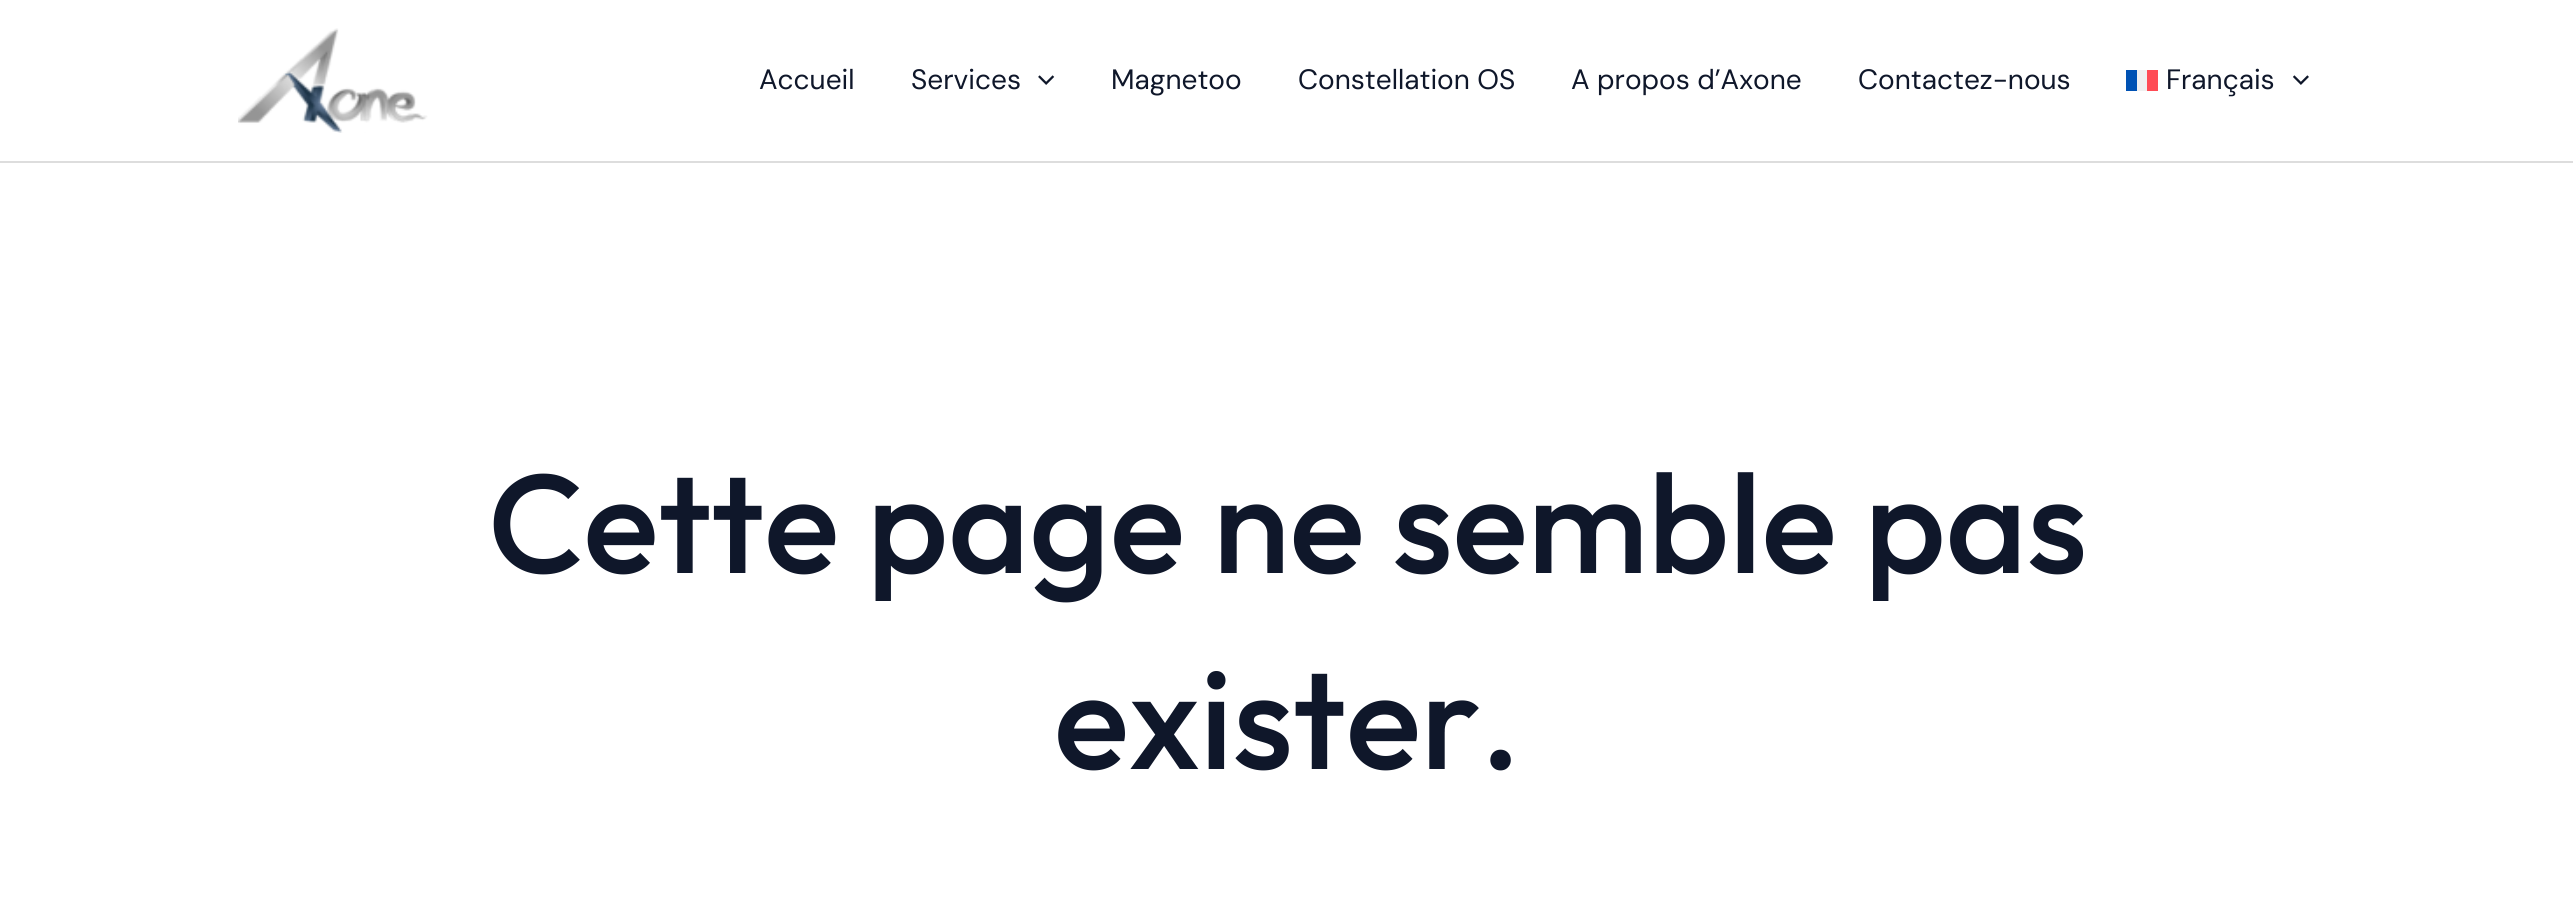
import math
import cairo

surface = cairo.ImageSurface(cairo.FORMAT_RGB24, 2573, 900)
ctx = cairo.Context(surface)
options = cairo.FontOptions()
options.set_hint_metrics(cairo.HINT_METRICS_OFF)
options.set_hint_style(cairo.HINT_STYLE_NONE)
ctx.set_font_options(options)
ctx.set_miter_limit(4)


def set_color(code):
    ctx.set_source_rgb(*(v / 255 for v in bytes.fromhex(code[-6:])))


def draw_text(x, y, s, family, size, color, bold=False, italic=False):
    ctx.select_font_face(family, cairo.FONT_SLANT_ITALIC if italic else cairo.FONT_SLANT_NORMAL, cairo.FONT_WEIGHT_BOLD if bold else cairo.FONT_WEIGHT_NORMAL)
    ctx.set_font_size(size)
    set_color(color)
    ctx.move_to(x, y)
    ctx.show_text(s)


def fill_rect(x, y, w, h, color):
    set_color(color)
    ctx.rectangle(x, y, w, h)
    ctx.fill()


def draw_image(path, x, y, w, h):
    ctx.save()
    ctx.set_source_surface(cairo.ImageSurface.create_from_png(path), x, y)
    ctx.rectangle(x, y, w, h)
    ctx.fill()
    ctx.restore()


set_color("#ffffff")
ctx.paint()
fill_rect(0, 161, 2573, 2, "#dddddd")
draw_image("assets/img1.png", 238, 28, 190, 105)
draw_text(759, 89, "Accueil", "DM Sans", 28, "#0f172a")
draw_text(911, 89, "Services", "DM Sans", 28, "#0f172a")
draw_image("assets/img2.png", 1038, 75, 17, 10)
draw_text(1111, 89, "Magnetoo", "DM Sans", 28, "#0f172a")
draw_text(1298, 89, "Constellation OS", "DM Sans", 28, "#0f172a")
draw_text(1571, 89, "A propos d’Axone", "DM Sans", 28, "#0f172a")
draw_text(1858, 89, "Contactez-nous", "DM Sans", 28, "#0f172a")
fill_rect(2137, 70, 10, 21, "#f0f0f0")
fill_rect(2147, 70, 11, 21, "#ff4b55")
fill_rect(2126, 70, 11, 21, "#0052b4")
draw_text(2166, 89, "Français", "DM Sans", 28, "#0f172a")
draw_image("assets/img3.png", 2293, 75, 16, 10)
draw_text(488, 573, "Cette page ne semble pas", "Outfit Medium", 140, "#0f172a")
draw_text(1054, 769, "exister.", "Outfit Medium", 140, "#0f172a")
surface.write_to_png("output.png")
